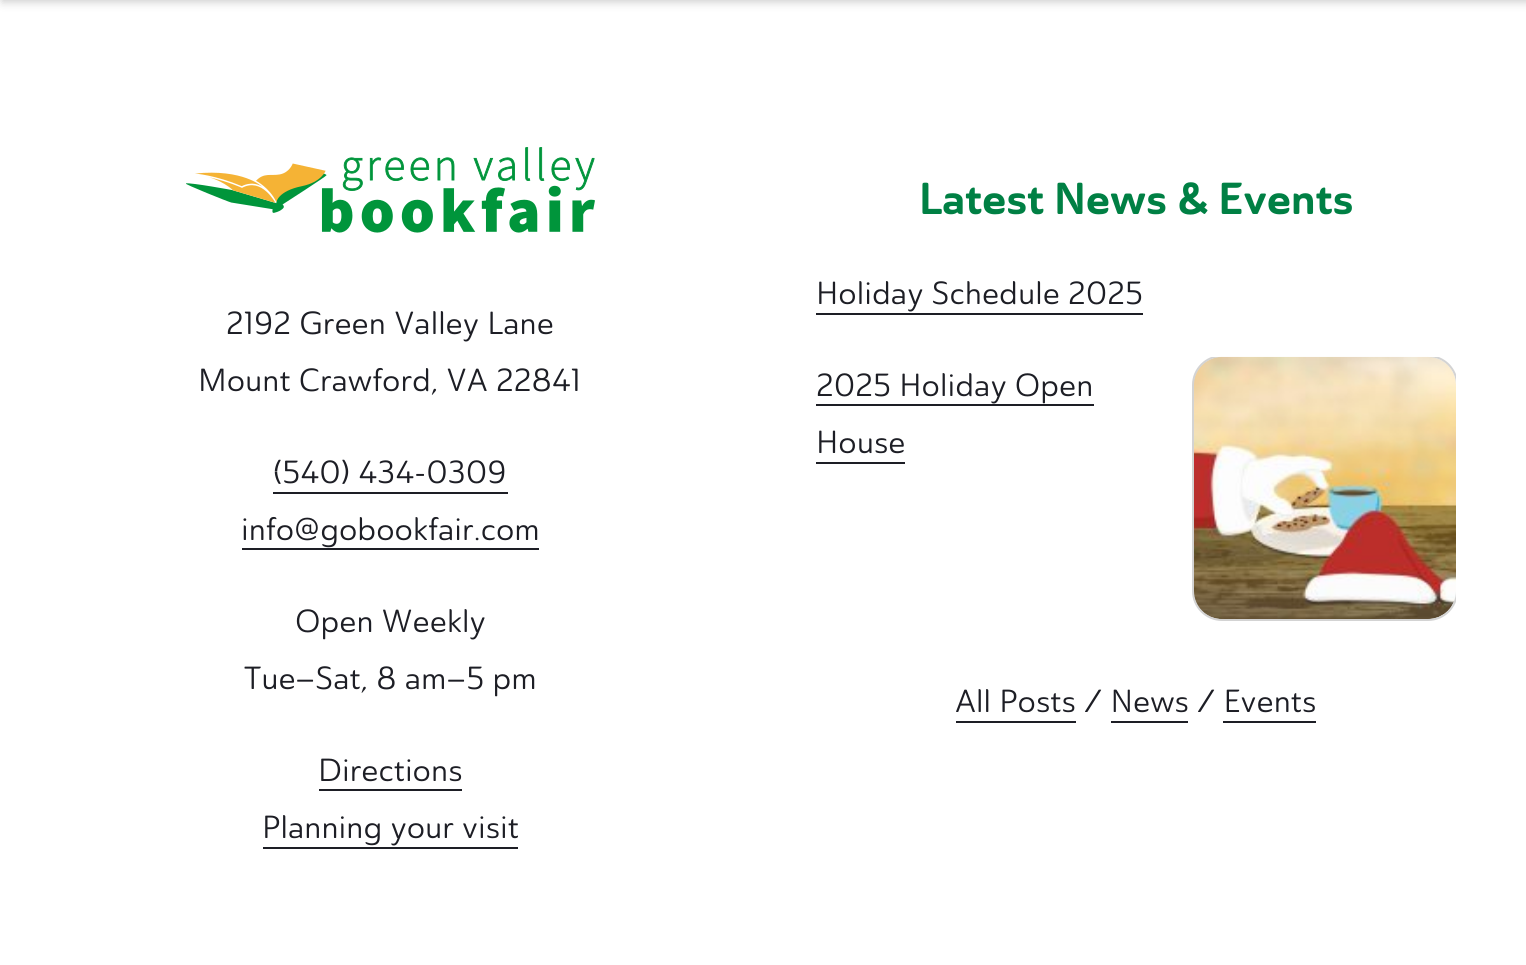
import math
import cairo

surface = cairo.ImageSurface(cairo.FORMAT_RGB24, 1526, 965)
ctx = cairo.Context(surface)
options = cairo.FontOptions()
options.set_hint_metrics(cairo.HINT_METRICS_OFF)
options.set_hint_style(cairo.HINT_STYLE_NONE)
ctx.set_font_options(options)
ctx.set_miter_limit(4)


def set_color(code):
    ctx.set_source_rgb(*(v / 255 for v in bytes.fromhex(code[-6:])))


def draw_text(x, y, s, family, size, color, bold=False, italic=False):
    ctx.select_font_face(family, cairo.FONT_SLANT_ITALIC if italic else cairo.FONT_SLANT_NORMAL, cairo.FONT_WEIGHT_BOLD if bold else cairo.FONT_WEIGHT_NORMAL)
    ctx.set_font_size(size)
    set_color(color)
    ctx.move_to(x, y)
    ctx.show_text(s)


def fill_rect(x, y, w, h, color):
    set_color(color)
    ctx.rectangle(x, y, w, h)
    ctx.fill()


def rounded_rect(x, y, w, h, r):
    ctx.new_sub_path()
    for i, (u, v) in enumerate([(x + w - r, y + h - r), (x + r, y + h - r), (x + r, y + r), (x + w - r, y + r)]):
        ctx.arc(u, v, r, i * math.pi / 2, (i + 1) * math.pi / 2)
    ctx.close_path()


def draw_shadow(x, y, w, h, r, blur, alpha):
    ctx.push_group_with_content(cairo.CONTENT_ALPHA)
    ctx.set_operator(cairo.OPERATOR_SOURCE)
    for i in range(15, -16, -2):
        e = blur * i / 6
        if min(w, h) + 2 * e > 0:
            ctx.set_source_rgba(0, 0, 0, alpha * math.erfc((i - 1) / 8.5) / 2)
            rounded_rect(x - e, y - e, w + 2 * e, h + 2 * e, max(0, min(r + e + blur * .6, min(w, h) / 2 + e)))
            ctx.fill()
    ctx.mask(ctx.pop_group())


def draw_image(path, x, y, w, h):
    ctx.save()
    ctx.set_source_surface(cairo.ImageSurface.create_from_png(path), x, y)
    ctx.rectangle(x, y, w, h)
    ctx.fill()
    ctx.restore()


set_color("#ffffff")
ctx.paint()
set_color("#000000")
draw_shadow(2, -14, 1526, 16, 0, 4.5, 0.2)
draw_image("assets/img1.png", 186, 147, 409, 86)
draw_text(226, 334, "2192 Green Valley Lane", "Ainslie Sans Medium", 31.6, "#1d1e25")
draw_text(198, 391, "Mount Crawford, VA 22841", "Ainslie Sans Medium", 31.6, "#1d1e25")
draw_text(273, 483, "(540) 434-0309", "Ainslie Sans Medium", 31.6, "#1d1e25")
fill_rect(273, 492, 235, 2, "#1d1e25")
draw_text(241, 540, "info@gobookfair.com", "Ainslie Sans Medium", 31.6, "#1d1e25")
fill_rect(242, 548, 297, 2, "#1d1e25")
draw_text(295, 632, "Open Weekly", "Ainslie Sans Medium", 31.6, "#1d1e25")
draw_text(244, 689, "Tue–Sat, 8 am–5 pm", "Ainslie Sans Medium", 31.6, "#1d1e25")
draw_text(318, 781, "Directions", "Ainslie Sans Medium", 31.6, "#1d1e25")
fill_rect(319, 789, 143, 2, "#1d1e25")
draw_text(262, 838, "Planning your visit", "Ainslie Sans Medium", 31.6, "#1d1e25")
fill_rect(263, 847, 255, 2, "#1d1e25")
draw_text(919, 214, "Latest News & Events", "Ainslie Sans Black", 44.25, "#008044")
draw_text(816, 304, "Holiday Schedule 2025", "Ainslie Sans Medium", 31.6, "#1d1e25")
fill_rect(816, 313, 327, 2, "#1d1e25")
draw_text(816, 396, "2025 Holiday Open", "Ainslie Sans Medium", 31.6, "#1d1e25")
fill_rect(816, 404, 278, 2, "#1d1e25")
draw_image("assets/img2.png", 1194, 356, 262, 263)
ctx.save()
ctx.rectangle(816, 357, 640, 282)
ctx.clip()
rounded_rect(1193, 356, 264, 264, 29)
set_color("#d3d3d3")
ctx.stroke()
ctx.restore()
draw_text(816, 453, "House", "Ainslie Sans Medium", 31.6, "#1d1e25")
fill_rect(816, 462, 89, 2, "#1d1e25")
draw_text(955, 712, "All Posts / News / Events", "Ainslie Sans Medium", 31.6, "#1d1e25")
fill_rect(956, 721, 120, 2, "#1d1e25")
fill_rect(1111, 721, 77, 2, "#1d1e25")
fill_rect(1223, 721, 93, 2, "#1d1e25")
surface.write_to_png("output.png")
